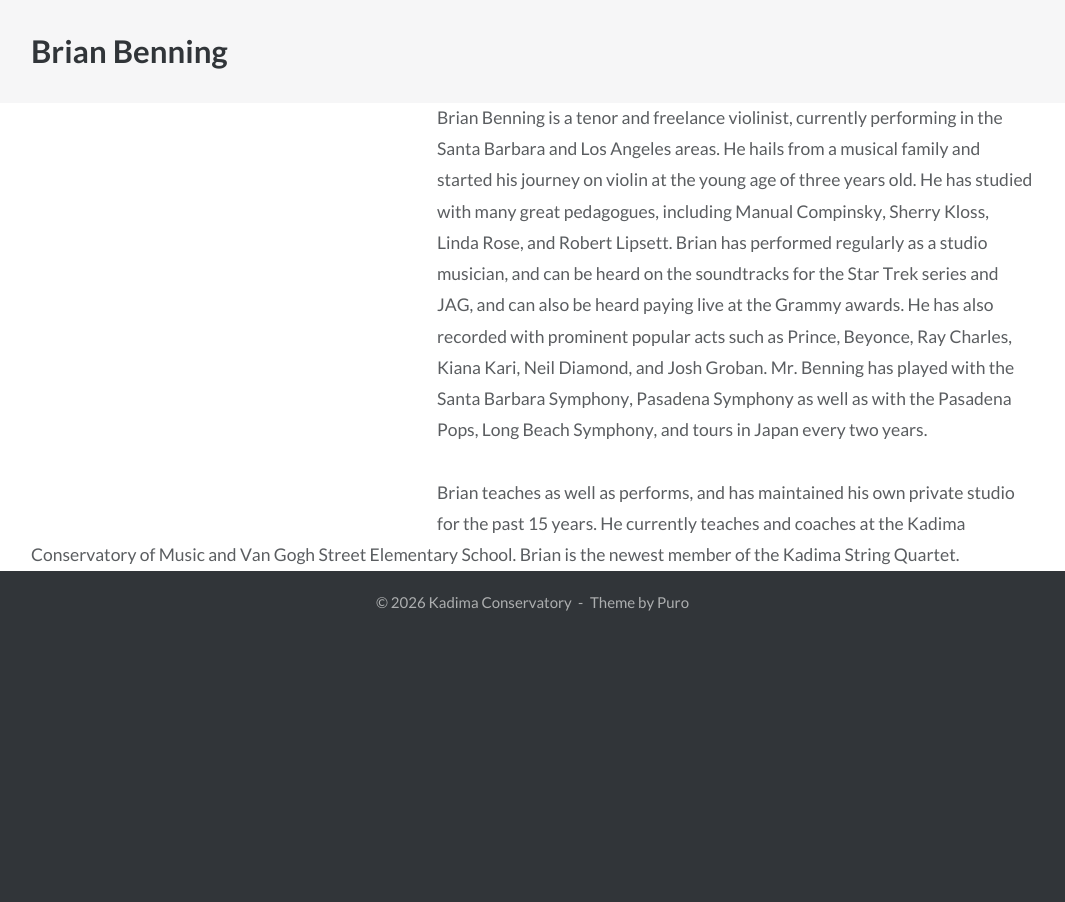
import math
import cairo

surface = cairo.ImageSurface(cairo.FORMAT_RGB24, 1065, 902)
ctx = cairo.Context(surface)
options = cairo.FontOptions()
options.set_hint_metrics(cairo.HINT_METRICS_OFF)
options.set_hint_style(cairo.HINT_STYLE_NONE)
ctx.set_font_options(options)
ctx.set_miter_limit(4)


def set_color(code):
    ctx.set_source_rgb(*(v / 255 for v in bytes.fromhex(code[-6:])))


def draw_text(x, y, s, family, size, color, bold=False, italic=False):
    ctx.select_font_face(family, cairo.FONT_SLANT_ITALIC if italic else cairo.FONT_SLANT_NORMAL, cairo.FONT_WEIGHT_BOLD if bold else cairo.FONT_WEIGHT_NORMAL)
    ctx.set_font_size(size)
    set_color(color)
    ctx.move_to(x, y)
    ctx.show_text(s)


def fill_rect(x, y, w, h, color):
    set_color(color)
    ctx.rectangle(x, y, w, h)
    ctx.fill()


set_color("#313539")
ctx.paint()
fill_rect(0, 103, 1065, 468, "#ffffff")
fill_rect(0, 0, 1065, 103, "#f6f6f7")
draw_text(31, 63, "Brian Benning", "Lato", 31.25, "#313539", bold=True)
draw_text(437, 124, "Brian Benning is a tenor and freelance violinist, currently performing in the", "Lato", 17.5, "#5a5d60")
draw_text(437, 155, "Santa Barbara and Los Angeles areas. He hails from a musical family and", "Lato", 17.5, "#5a5d60")
draw_text(437, 186, "started his journey on violin at the young age of three years old. He has studied", "Lato", 17.5, "#5a5d60")
draw_text(437, 218, "with many great pedagogues, including Manual Compinsky, Sherry Kloss,", "Lato", 17.5, "#5a5d60")
draw_text(437, 249, "Linda Rose, and Robert Lipsett. Brian has performed regularly as a studio", "Lato", 17.5, "#5a5d60")
draw_text(437, 280, "musician, and can be heard on the soundtracks for the Star Trek series and", "Lato", 17.5, "#5a5d60")
draw_text(437, 311, "JAG, and can also be heard paying live at the Grammy awards. He has also", "Lato", 17.5, "#5a5d60")
draw_text(437, 343, "recorded with prominent popular acts such as Prince, Beyonce, Ray Charles,", "Lato", 17.5, "#5a5d60")
draw_text(437, 374, "Kiana Kari, Neil Diamond, and Josh Groban. Mr. Benning has played with the", "Lato", 17.5, "#5a5d60")
draw_text(437, 405, "Santa Barbara Symphony, Pasadena Symphony as well as with the Pasadena", "Lato", 17.5, "#5a5d60")
draw_text(437, 436, "Pops, Long Beach Symphony, and tours in Japan every two years.", "Lato", 17.5, "#5a5d60")
draw_text(437, 499, "Brian teaches as well as performs, and has maintained his own private studio", "Lato", 17.5, "#5a5d60")
draw_text(437, 530, "for the past 15 years. He currently teaches and coaches at the Kadima", "Lato", 17.5, "#5a5d60")
draw_text(31, 561, "Conservatory of Music and Van Gogh Street Elementary School. Brian is the newest member of the Kadima String Quartet.", "Lato", 17.5, "#5a5d60")
draw_text(376, 608, "© 2026 Kadima Conservatory", "Lato", 15, "#acaeaf")
draw_text(578, 608, "-", "Lato", 15, "#acaeaf")
draw_text(590, 608, "Theme by Puro", "Lato", 15, "#acaeaf")
surface.write_to_png("output.png")
